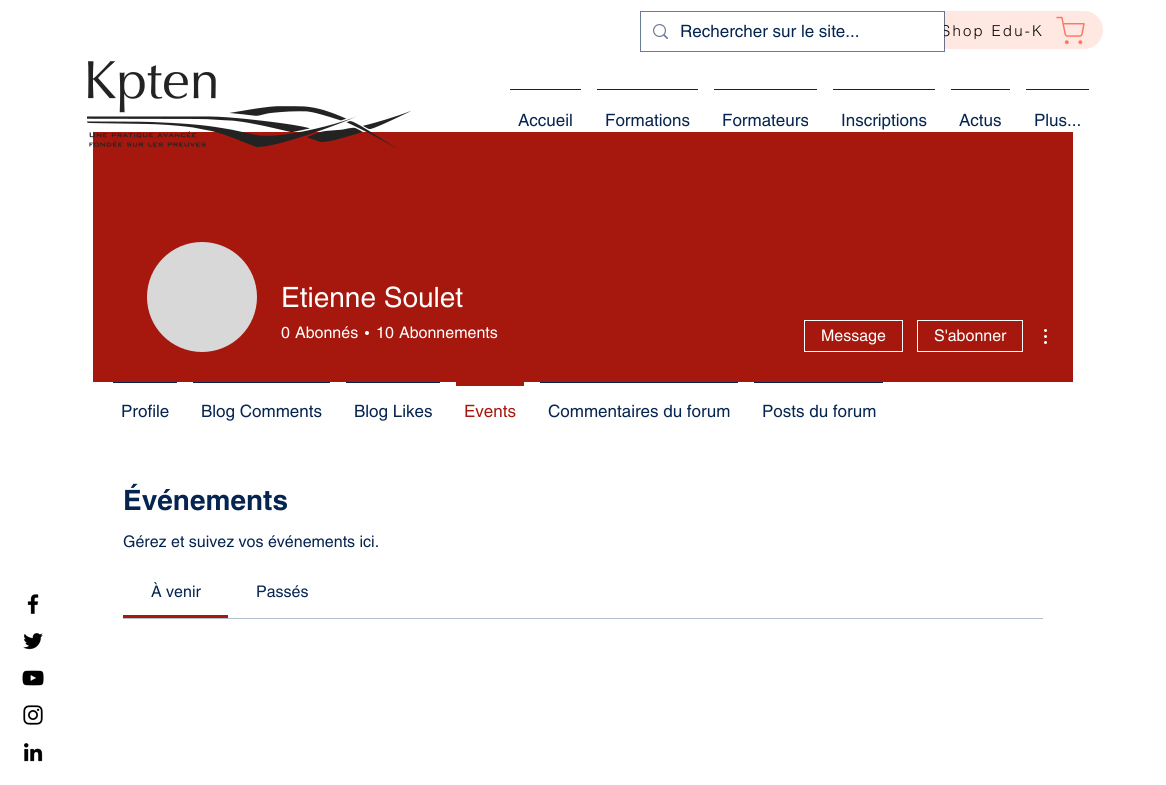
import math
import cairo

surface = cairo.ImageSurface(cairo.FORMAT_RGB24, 1166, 785)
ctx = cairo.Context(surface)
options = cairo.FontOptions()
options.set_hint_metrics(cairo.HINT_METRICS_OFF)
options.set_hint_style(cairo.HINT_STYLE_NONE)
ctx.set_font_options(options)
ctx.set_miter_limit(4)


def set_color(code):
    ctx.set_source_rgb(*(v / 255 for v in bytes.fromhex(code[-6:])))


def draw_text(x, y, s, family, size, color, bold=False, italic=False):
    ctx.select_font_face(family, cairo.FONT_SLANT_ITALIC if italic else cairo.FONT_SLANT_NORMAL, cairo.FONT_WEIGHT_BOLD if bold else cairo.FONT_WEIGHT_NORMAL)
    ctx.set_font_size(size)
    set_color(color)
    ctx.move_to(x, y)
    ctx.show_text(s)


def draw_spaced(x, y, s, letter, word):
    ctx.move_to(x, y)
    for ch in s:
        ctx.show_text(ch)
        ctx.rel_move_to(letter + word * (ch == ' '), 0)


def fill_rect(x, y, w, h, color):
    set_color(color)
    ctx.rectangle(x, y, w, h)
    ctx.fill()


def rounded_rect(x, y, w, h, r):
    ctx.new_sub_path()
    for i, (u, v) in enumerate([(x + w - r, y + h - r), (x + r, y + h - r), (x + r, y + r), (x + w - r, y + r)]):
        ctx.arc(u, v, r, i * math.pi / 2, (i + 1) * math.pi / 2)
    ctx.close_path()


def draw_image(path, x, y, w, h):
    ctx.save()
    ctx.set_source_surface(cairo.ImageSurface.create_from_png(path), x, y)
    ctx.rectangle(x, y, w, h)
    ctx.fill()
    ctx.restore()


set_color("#ffffff")
ctx.paint()
set_color("#ffe8e1")
rounded_rect(927, 11, 176, 38, 19)
ctx.fill()
ctx.select_font_face("helvetica Light")
ctx.set_font_size(15)
set_color("#000000")
draw_spaced(941, 36, "Shop Edu-K", 2.25, 0)
ctx.rectangle(640.5, 11.5, 304, 40)
ctx.set_source_rgba(0.02, 0.141, 0.31, 0.6)
ctx.set_line_width(1)
ctx.stroke()
fill_rect(927, 12, 17, 37, "#ffffff")
draw_image("assets/img1.png", 653, 24, 15, 15)
draw_text(680, 37, "Rechercher sur le site...", "helvetica", 17, "#05244f")
draw_image("assets/img2.png", 1056, 16, 29, 29)
fill_rect(93, 132, 980, 250, "#a6180d")
draw_image("assets/img3.png", 87, 61, 324, 88)
fill_rect(510, 89, 71, 1, "#05244f")
draw_text(518, 126, "Accueil", "helvetica", 17, "#05244f")
fill_rect(597, 89, 101, 1, "#05244f")
draw_text(605, 126, "Formations", "helvetica", 17, "#05244f")
fill_rect(714, 89, 103, 1, "#05244f")
draw_text(722, 126, "Formateurs", "helvetica", 17, "#05244f")
fill_rect(833, 89, 102, 1, "#05244f")
draw_text(841, 126, "Inscriptions", "helvetica", 17, "#05244f")
fill_rect(951, 89, 59, 1, "#05244f")
draw_text(959, 126, "Actus", "helvetica", 17, "#05244f")
fill_rect(1026, 89, 63, 1, "#05244f")
draw_text(1034, 126, "Plus...", "helvetica", 17, "#05244f")
set_color("#d8d8d8")
ctx.new_path()
ctx.arc(202, 297, 55, 0, 2 * math.pi)
ctx.fill()
draw_text(281, 307, "Etienne Soulet", "helvetica", 28, "#ffffff")
draw_text(281, 338, "0", "helvetica", 16, "#ffffff")
draw_text(295, 338, "Abonnés", "helvetica", 16, "#ffffff")
ctx.new_path()
ctx.arc(367, 333, 2, 0, 2 * math.pi)
ctx.fill()
draw_text(376, 338, "10", "helvetica", 16, "#ffffff")
draw_text(399, 338, "Abonnements", "helvetica", 16, "#ffffff")
ctx.rectangle(804.5, 320.5, 98, 31)
ctx.stroke()
draw_text(821, 341, "Message", "helvetica", 16, "#ffffff")
ctx.rectangle(917.5, 320.5, 105, 31)
ctx.stroke()
draw_text(934, 341, "S'abonner", "helvetica", 16, "#ffffff")
draw_image("assets/img4.png", 1044, 329, 3, 15)
fill_rect(113, 382, 64, 1, "#05244f")
draw_text(121, 417, "Profile", "helvetica", 17, "#05244f")
fill_rect(193, 382, 137, 1, "#05244f")
draw_text(201, 417, "Blog Comments", "helvetica", 17, "#05244f")
fill_rect(346, 382, 94, 1, "#05244f")
draw_text(354, 417, "Blog Likes", "helvetica", 17, "#05244f")
fill_rect(456, 382, 68, 4, "#a6180d")
draw_text(464, 417, "Events", "helvetica", 17, "#a6180d")
fill_rect(540, 382, 198, 1, "#05244f")
draw_text(548, 417, "Commentaires du forum", "helvetica", 17, "#05244f")
fill_rect(754, 382, 129, 1, "#05244f")
draw_text(762, 417, "Posts du forum", "helvetica", 17, "#05244f")
draw_text(123, 510, "Événements", "helvetica", 28, "#05244f", bold=True)
draw_text(123, 547, "Gérez et suivez vos événements ici.", "helvetica", 16, "#05244f")
fill_rect(123, 615, 105, 3, "#a6180d")
draw_text(151, 597, "À venir", "helvetica", 16, "#05244f")
draw_text(256, 597, "Passés", "helvetica", 16, "#05244f")
fill_rect(123, 618, 920, 1, "#b4bdca")
draw_image("assets/img5.png", 27, 594, 12, 20)
draw_image("assets/img6.png", 23, 633, 20, 17)
draw_image("assets/img7.png", 22, 670, 22, 16)
draw_image("assets/img8.png", 23, 705, 20, 20)
draw_image("assets/img9.png", 23, 743, 20, 19)
surface.write_to_png("output.png")
